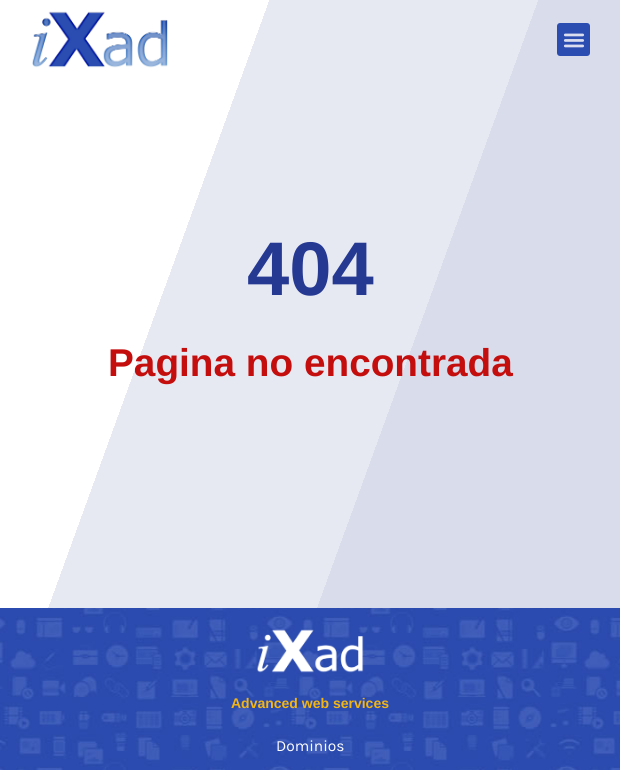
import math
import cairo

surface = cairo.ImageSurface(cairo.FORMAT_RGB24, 620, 770)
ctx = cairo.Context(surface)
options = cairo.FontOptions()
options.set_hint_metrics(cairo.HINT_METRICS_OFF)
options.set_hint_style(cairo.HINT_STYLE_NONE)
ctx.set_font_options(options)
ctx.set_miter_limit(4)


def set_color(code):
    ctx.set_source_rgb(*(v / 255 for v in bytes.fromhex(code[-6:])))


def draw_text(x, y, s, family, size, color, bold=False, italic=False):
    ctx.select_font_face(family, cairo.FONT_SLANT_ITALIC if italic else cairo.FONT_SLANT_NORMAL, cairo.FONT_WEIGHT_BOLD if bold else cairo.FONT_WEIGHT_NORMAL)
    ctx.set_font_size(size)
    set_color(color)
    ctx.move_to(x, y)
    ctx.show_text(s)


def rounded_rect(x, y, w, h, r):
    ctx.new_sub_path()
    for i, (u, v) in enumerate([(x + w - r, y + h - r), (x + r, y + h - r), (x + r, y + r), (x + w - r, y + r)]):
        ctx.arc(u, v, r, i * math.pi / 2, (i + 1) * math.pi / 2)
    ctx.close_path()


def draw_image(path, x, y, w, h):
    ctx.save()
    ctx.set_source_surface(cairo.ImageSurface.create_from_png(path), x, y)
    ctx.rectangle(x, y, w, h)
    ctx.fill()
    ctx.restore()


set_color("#ffffff")
ctx.paint()
gradient = cairo.LinearGradient(-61, 169, 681, 439)
gradient.add_color_stop_rgba(0.32, 1, 1, 1, 1)
gradient.add_color_stop_rgba(0.32, 0.906, 0.914, 0.949, 1)
ctx.set_source(gradient)
ctx.rectangle(48, 0, 572, 608)
ctx.fill()
draw_image("assets/img1.png", 32, 11, 136, 57)
gradient = cairo.LinearGradient(-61, 169, 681, 439)
gradient.add_color_stop_rgba(0.64, 0.145, 0.224, 0.576, 0)
gradient.add_color_stop_rgba(0.64, 0.145, 0.224, 0.576, 0.08)
ctx.set_source(gradient)
ctx.rectangle(317, 0, 303, 608)
ctx.fill()
set_color("#2b4db1")
rounded_rect(557, 23, 33, 33, 3)
ctx.fill()
draw_image("assets/img2.png", 563, 33, 22, 15)
draw_text(247, 295, "404", "Liberation Sans", 76, "#253993", bold=True)
draw_text(108, 376, "Pagina no encontrada", "Liberation Sans", 38.75, "#c40e0e", bold=True)
draw_image("assets/img3.png", 0, 608, 620, 162)
draw_image("assets/img4.png", 257, 629, 107, 44)
draw_text(231, 708, "Advanced web services", "Liberation Sans", 14, "#f2b513", bold=True)
draw_text(276, 751, "Dominios", "Karla", 15.5, "#ffffff")
surface.write_to_png("output.png")
